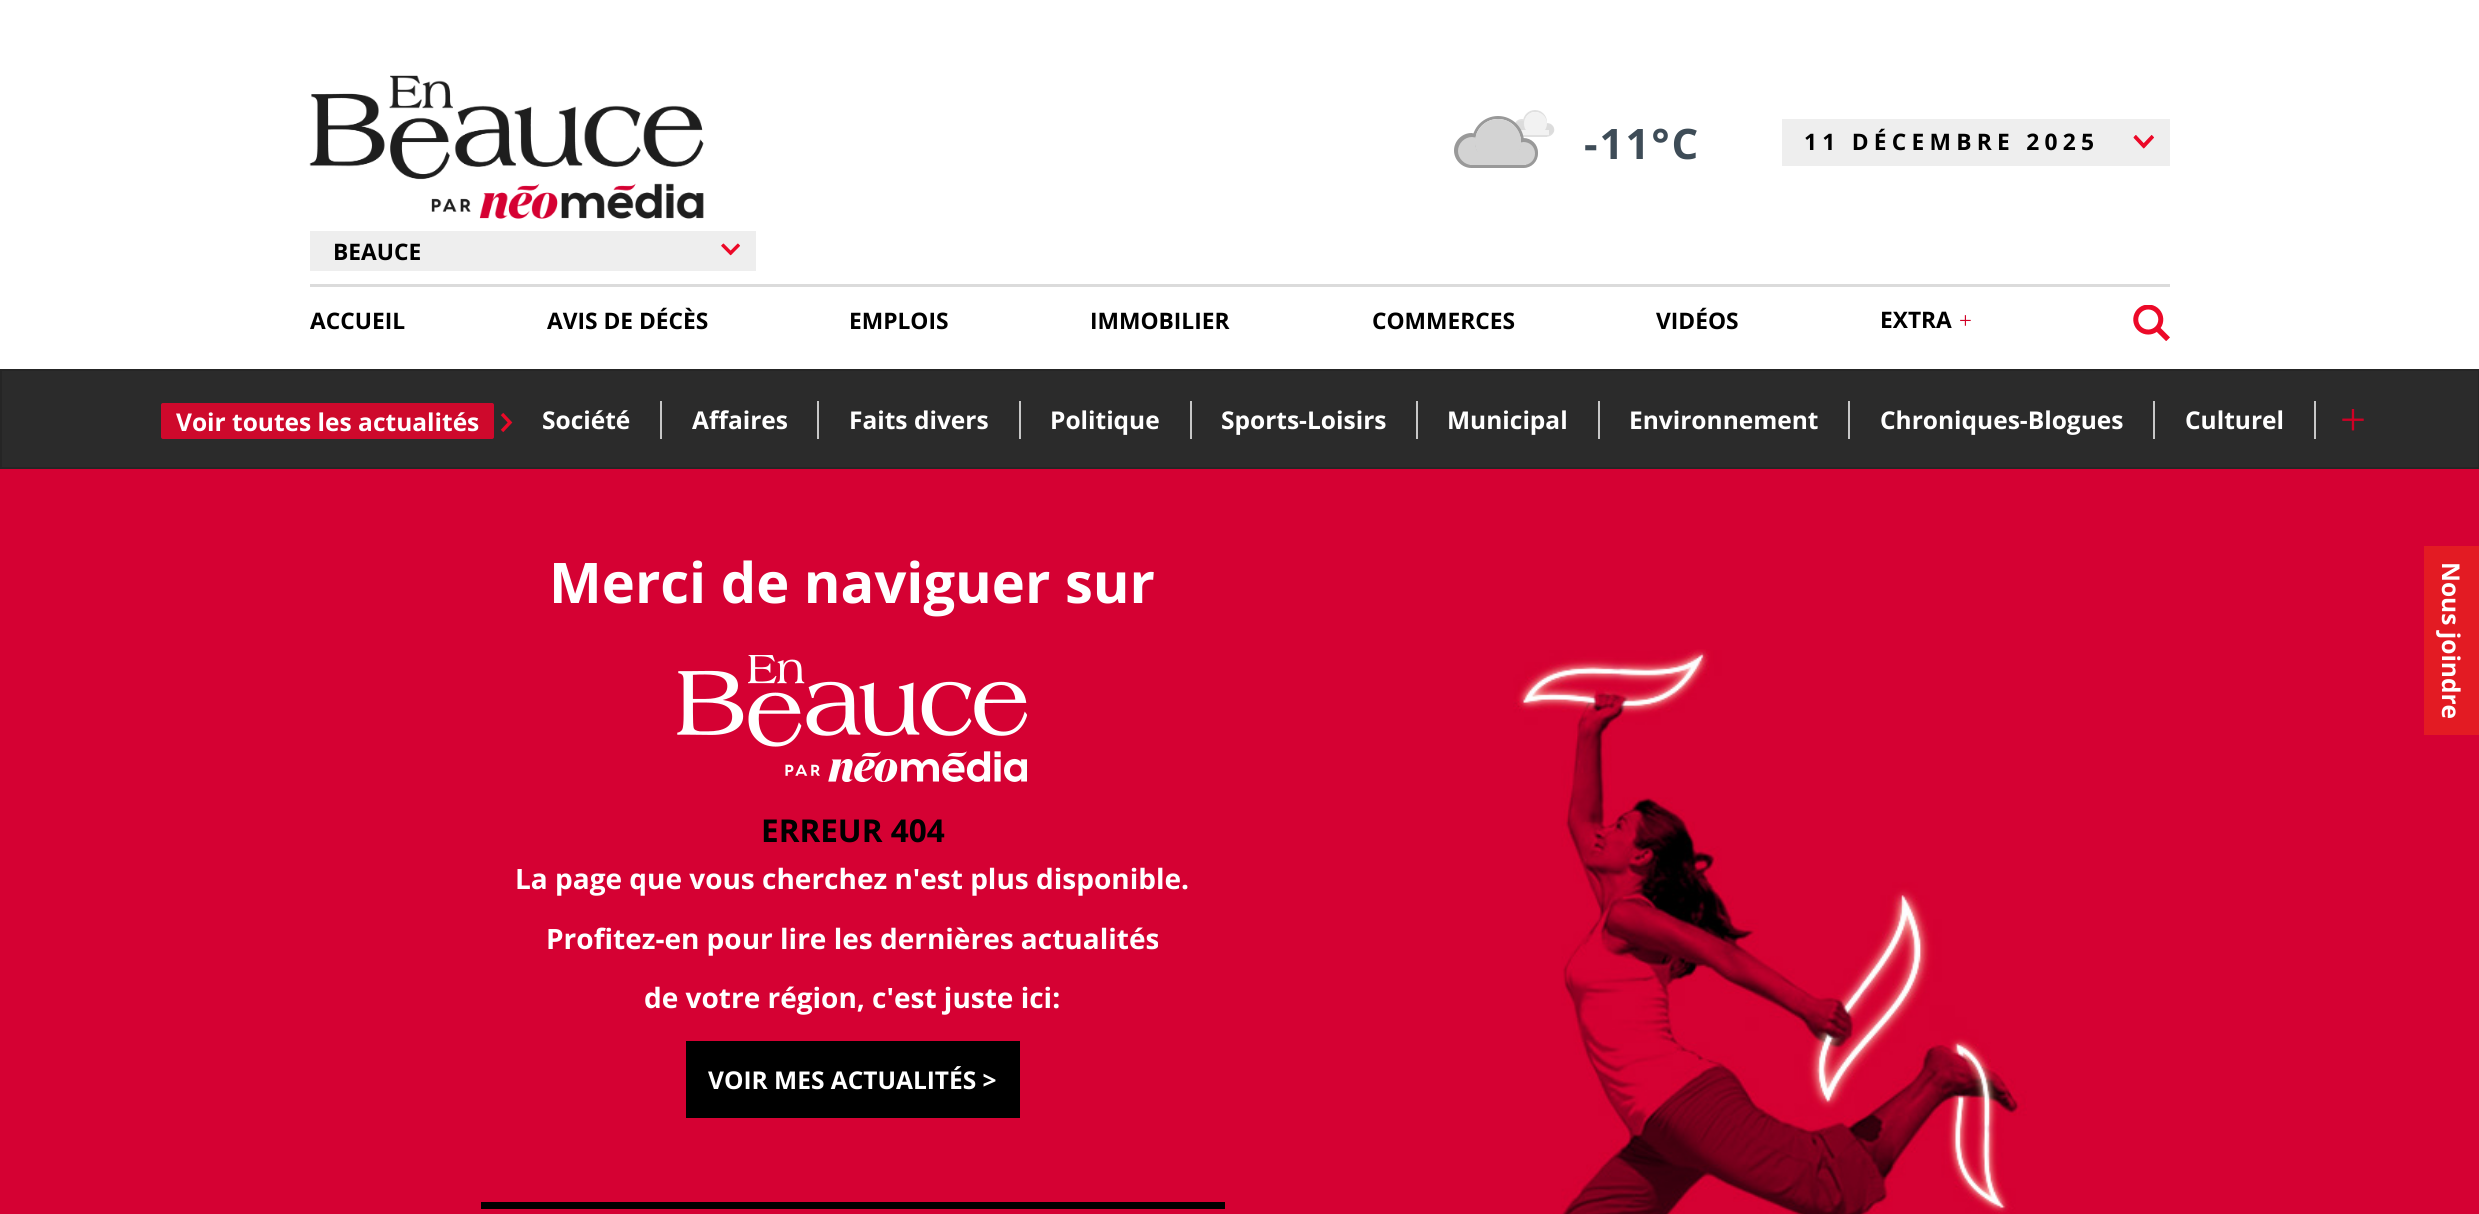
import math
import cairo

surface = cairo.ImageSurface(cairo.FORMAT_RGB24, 2479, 1214)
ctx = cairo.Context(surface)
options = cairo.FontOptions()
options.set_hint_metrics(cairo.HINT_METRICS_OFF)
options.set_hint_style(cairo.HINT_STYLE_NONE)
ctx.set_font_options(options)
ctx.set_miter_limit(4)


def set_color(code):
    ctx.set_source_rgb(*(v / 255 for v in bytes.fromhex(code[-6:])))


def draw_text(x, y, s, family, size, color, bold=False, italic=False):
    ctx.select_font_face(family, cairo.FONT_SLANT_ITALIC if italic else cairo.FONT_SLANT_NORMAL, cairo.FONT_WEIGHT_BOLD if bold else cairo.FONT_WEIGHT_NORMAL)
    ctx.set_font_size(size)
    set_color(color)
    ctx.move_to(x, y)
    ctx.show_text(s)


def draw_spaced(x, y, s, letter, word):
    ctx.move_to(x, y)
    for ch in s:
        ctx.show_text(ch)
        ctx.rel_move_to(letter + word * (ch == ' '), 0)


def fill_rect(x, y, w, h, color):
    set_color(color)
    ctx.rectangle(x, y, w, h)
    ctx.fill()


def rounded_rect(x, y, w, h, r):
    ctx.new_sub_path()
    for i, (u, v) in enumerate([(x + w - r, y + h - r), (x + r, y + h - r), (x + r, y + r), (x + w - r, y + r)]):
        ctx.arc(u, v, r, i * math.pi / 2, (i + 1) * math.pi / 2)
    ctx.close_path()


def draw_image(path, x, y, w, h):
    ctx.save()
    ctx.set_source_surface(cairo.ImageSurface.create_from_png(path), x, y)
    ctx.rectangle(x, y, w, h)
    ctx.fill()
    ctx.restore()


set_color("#ffffff")
ctx.paint()
set_color("#e0e0e0")
ctx.new_path()
ctx.move_to(1547, 123)
ctx.line_to(1546, 123)
ctx.curve_to(1546.5, 127, 1544.5, 131, 1541, 133)
ctx.curve_to(1545, 141.5, 1558.5, 134, 1553, 126)
ctx.curve_to(1551.5, 124, 1549.5, 123, 1547, 123)
ctx.close_path()
ctx.move_to(1522, 119)
ctx.curve_to(1510.5, 119, 1511.5, 138.5, 1523, 137)
ctx.curve_to(1525.5, 136.5, 1527.5, 135, 1529, 133)
ctx.curve_to(1524.5, 130, 1522.5, 124.5, 1524.5, 119.5)
ctx.close_path()
ctx.fill()
rounded_rect(1524, 111, 22, 25, 11)
ctx.stroke()
ctx.set_source_rgba(0.827, 0.827, 0.827, 0.3)
ctx.new_path()
ctx.move_to(1547.5, 124)
ctx.line_to(1546, 124)
ctx.curve_to(1546, 127, 1544.5, 130, 1542.5, 132)
ctx.curve_to(1546, 138.5, 1557.5, 133.5, 1553, 126.5)
ctx.curve_to(1552, 125, 1550.5, 124, 1548.5, 124)
ctx.close_path()
ctx.move_to(1521, 121)
ctx.curve_to(1512, 121, 1511, 135, 1522, 135)
ctx.curve_to(1524.5, 135, 1526.5, 134.5, 1528, 132.5)
ctx.curve_to(1524.5, 130, 1523, 125.5, 1524, 121)
ctx.line_to(1523, 121)
ctx.close_path()
ctx.fill()
set_color("#f2f2f2")
ctx.arc(1535.5, 123.5, 11.5, 0, 2 * math.pi)
ctx.fill()
fill_rect(1523, 135, 24, 2, "#e0e0e0")
fill_rect(1521, 130, 28, 5, "#f2f2f2")
set_color("#999999")
ctx.new_path()
ctx.move_to(1523.5, 138)
ctx.line_to(1520.5, 138.5)
ctx.curve_to(1522, 147, 1518, 155.5, 1511, 160.5)
ctx.curve_to(1513.5, 165, 1518, 168, 1523.5, 168)
ctx.curve_to(1531.5, 168, 1538, 161.5, 1538, 153.5)
ctx.line_to(1538, 152.5)
ctx.curve_to(1538, 144.5, 1531.5, 138, 1523.5, 138)
ctx.close_path()
ctx.fill()
ctx.new_path()
ctx.move_to(1471.5, 133)
ctx.curve_to(1462, 133, 1454, 141, 1454, 150.5)
ctx.curve_to(1454, 160, 1462, 168, 1471.5, 168)
ctx.curve_to(1477.5, 168, 1482.5, 165, 1485.5, 161)
ctx.curve_to(1477, 155, 1473, 143.5, 1476.5, 134)
ctx.close_path()
ctx.fill()
ctx.arc(1498, 142, 24.5, 0, 2 * math.pi)
ctx.set_line_width(3)
ctx.stroke()
set_color("#d3d3d3")
ctx.new_path()
ctx.move_to(1523.5, 142)
ctx.line_to(1520.5, 142.5)
ctx.curve_to(1520.5, 149, 1517.5, 154.5, 1513, 158.5)
ctx.curve_to(1515, 162.5, 1519, 165, 1523.5, 165)
ctx.curve_to(1530, 165, 1535, 160, 1535, 153.5)
ctx.curve_to(1535, 147, 1530, 142, 1523.5, 142)
ctx.close_path()
ctx.fill()
ctx.new_path()
ctx.move_to(1472, 137)
ctx.curve_to(1464.5, 137, 1458, 143.5, 1458, 151)
ctx.curve_to(1458, 158.5, 1464.5, 165, 1472, 165)
ctx.curve_to(1476.5, 165, 1481, 162.5, 1483.5, 159)
ctx.curve_to(1477, 154, 1474, 145.5, 1475.5, 137.5)
ctx.close_path()
ctx.fill()
ctx.arc(1498, 142, 23, 0, 2 * math.pi)
ctx.fill()
fill_rect(1472, 165, 52, 3, "#999999")
fill_rect(1470, 152, 56, 13, "#d3d3d3")
ctx.select_font_face("Open Sans", cairo.FONT_SLANT_NORMAL, cairo.FONT_WEIGHT_BOLD)
ctx.set_font_size(42)
set_color("#3e4c57")
draw_spaced(1584, 159, "-11°C", 2, 0)
fill_rect(1782, 119, 388, 47, "#eeeeee")
ctx.set_font_size(22.75)
set_color("#000000")
draw_spaced(1804, 150, "11 DÉCEMBRE 2025", 5.25, 0)
draw_image("assets/img1.png", 2133, 135, 21, 14)
draw_image("assets/img2.png", 309, 75, 395, 144)
fill_rect(310, 231, 446, 40, "#eeeeee")
draw_text(333, 260, "BEAUCE", "Open Sans", 22.75, "#000000", bold=True)
draw_image("assets/img3.png", 721, 243, 19, 13)
fill_rect(310, 284, 1860, 3, "#dbdbdb")
draw_text(547, 329, "AVIS DE DÉCÈS", "Open Sans", 22.75, "#000000", bold=True)
draw_text(1656, 329, "VIDÉOS", "Open Sans", 22.75, "#000000", bold=True)
draw_text(1880, 328, "EXTRA", "Open Sans", 22.75, "#000000", bold=True)
draw_text(1959, 328, "+", "Liberation Serif", 22.75, "#d00025")
draw_image("assets/img4.png", 2133, 305, 37, 36)
draw_text(310, 329, "ACCUEIL", "Open Sans", 22.75, "#000000", bold=True)
set_color("#2b2b2b")
ctx.rectangle(1, 370, 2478, 98)
ctx.fill_preserve()
set_color("#252525")
ctx.set_line_width(2)
ctx.stroke()
set_color("#ce092c")
rounded_rect(161, 403, 333, 36, 2)
ctx.fill()
draw_text(176, 431, "Voir toutes les actualités", "Open Sans", 24.5, "#ffffff", bold=True)
ctx.new_path()
ctx.move_to(502, 431)
ctx.line_to(510, 422.5)
ctx.line_to(502, 414)
set_color("#ec0928")
ctx.set_line_width(3.4)
ctx.stroke()
draw_text(542, 429, "Société", "Open Sans", 24.5, "#ffffff", bold=True)
fill_rect(660, 401, 2, 38, "#c7c7c7")
draw_text(692, 429, "Affaires", "Open Sans", 24.5, "#ffffff", bold=True)
fill_rect(817, 401, 2, 38, "#c7c7c7")
draw_text(849, 429, "Faits divers", "Open Sans", 24.5, "#ffffff", bold=True)
fill_rect(1019, 401, 2, 38, "#c7c7c7")
draw_text(1050, 429, "Politique", "Open Sans", 24.5, "#ffffff", bold=True)
fill_rect(1190, 401, 2, 38, "#c7c7c7")
draw_text(1221, 429, "Sports-Loisirs", "Open Sans", 24.5, "#ffffff", bold=True)
fill_rect(1416, 401, 2, 38, "#c7c7c7")
draw_text(1447, 429, "Municipal", "Open Sans", 24.5, "#ffffff", bold=True)
fill_rect(1598, 401, 2, 38, "#c7c7c7")
draw_text(1629, 429, "Environnement", "Open Sans", 24.5, "#ffffff", bold=True)
fill_rect(1848, 401, 2, 38, "#c7c7c7")
draw_text(1880, 429, "Chroniques-Blogues", "Open Sans", 24.5, "#ffffff", bold=True)
fill_rect(2153, 401, 2, 38, "#c7c7c7")
draw_text(2185, 429, "Culturel", "Open Sans", 24.5, "#ffffff", bold=True)
fill_rect(2314, 401, 2, 38, "#c7c7c7")
draw_text(2340, 435, "+", "Liberation Serif", 46, "#d00025")
draw_text(849, 329, "EMPLOIS", "Open Sans", 22.75, "#000000", bold=True)
draw_text(1090, 329, "IMMOBILIER", "Open Sans", 22.75, "#000000", bold=True)
draw_text(1372, 329, "COMMERCES", "Open Sans", 22.75, "#000000", bold=True)
fill_rect(0, 469, 2479, 745, "#d50133")
draw_text(549, 603, "Merci de naviguer sur", "Open Sans", 56, "#ffffff", bold=True)
draw_image("assets/img5.png", 677, 655, 350, 127)
draw_text(761, 842, "ERREUR 404", "Open Sans", 31.5, "#000000", bold=True)
draw_text(515, 889, "La page que vous cherchez n'est plus disponible.", "Open Sans", 28, "#ffffff", bold=True)
draw_text(546, 949, "Profitez-en pour lire les dernières actualités", "Open Sans", 28, "#ffffff", bold=True)
draw_text(644, 1008, "de votre région, c'est juste ici:", "Open Sans", 28, "#ffffff", bold=True)
fill_rect(686, 1041, 334, 77, "#000000")
draw_text(708, 1089, "VOIR MES ACTUALITÉS >", "Open Sans", 24.5, "#ffffff", bold=True)
fill_rect(481, 1202, 744, 7, "#000000")
draw_image("assets/img6.png", 1513, 649, 514, 565)
fill_rect(2424, 546, 55, 189, "#e31b23")
ctx.save()
ctx.translate(2442, 562)
ctx.rotate(90 * math.pi / 180)
draw_text(0, 0, "Nous joindre", "Open Sans", 24.5, "#ffffff", bold=True)
ctx.restore()
surface.write_to_png("output.png")
